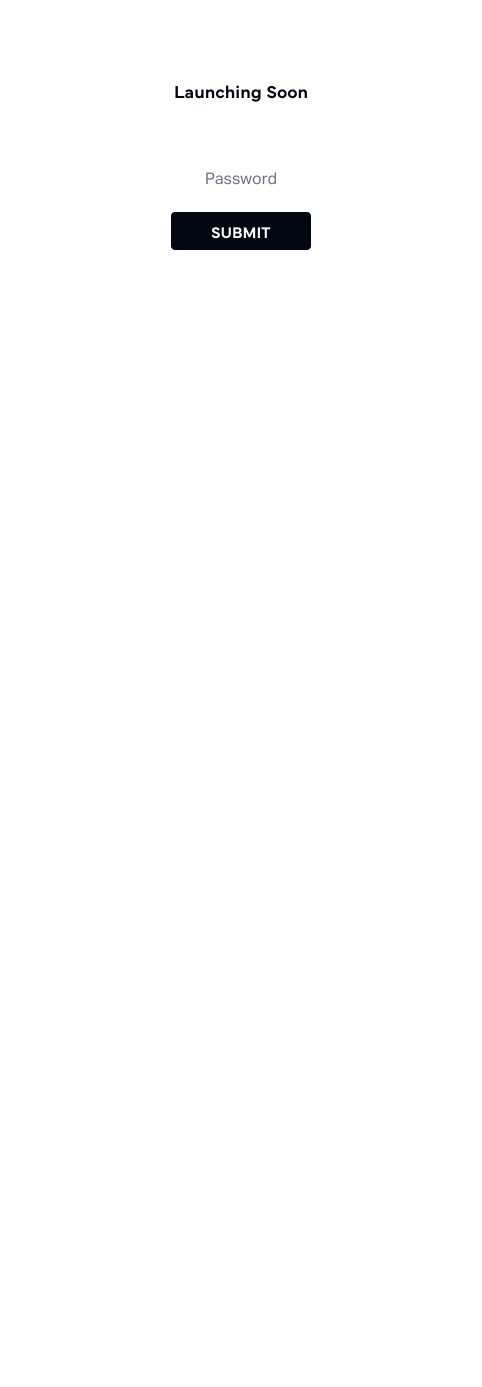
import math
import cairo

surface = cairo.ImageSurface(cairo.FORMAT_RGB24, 482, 1387)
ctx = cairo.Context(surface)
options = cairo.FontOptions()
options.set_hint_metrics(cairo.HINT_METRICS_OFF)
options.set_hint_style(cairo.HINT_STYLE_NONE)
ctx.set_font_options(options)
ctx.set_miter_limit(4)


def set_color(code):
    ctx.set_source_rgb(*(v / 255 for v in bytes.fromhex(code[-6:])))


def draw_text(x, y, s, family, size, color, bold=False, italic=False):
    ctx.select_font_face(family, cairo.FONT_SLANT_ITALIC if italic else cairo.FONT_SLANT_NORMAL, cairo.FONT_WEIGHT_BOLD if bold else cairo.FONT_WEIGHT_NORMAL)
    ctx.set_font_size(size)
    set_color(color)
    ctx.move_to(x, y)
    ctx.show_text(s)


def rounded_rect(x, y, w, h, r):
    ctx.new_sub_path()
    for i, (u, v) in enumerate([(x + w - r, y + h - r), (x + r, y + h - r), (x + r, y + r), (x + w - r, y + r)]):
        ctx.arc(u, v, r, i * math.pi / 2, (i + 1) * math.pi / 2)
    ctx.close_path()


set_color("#ffffff")
ctx.paint()
draw_text(174, 98, "Launching Soon", "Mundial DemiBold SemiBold", 18, "#030711")
draw_text(205, 184, "Password", "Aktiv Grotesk", 16, "#6b7280")
set_color("#030711")
rounded_rect(171.5, 212.5, 139, 37, 3.5)
ctx.fill_preserve()
ctx.set_line_width(1)
ctx.stroke()
draw_text(211, 238, "SUBMIT", "Mundial DemiBold SemiBold", 16, "#ffffff")
surface.write_to_png("output.png")
